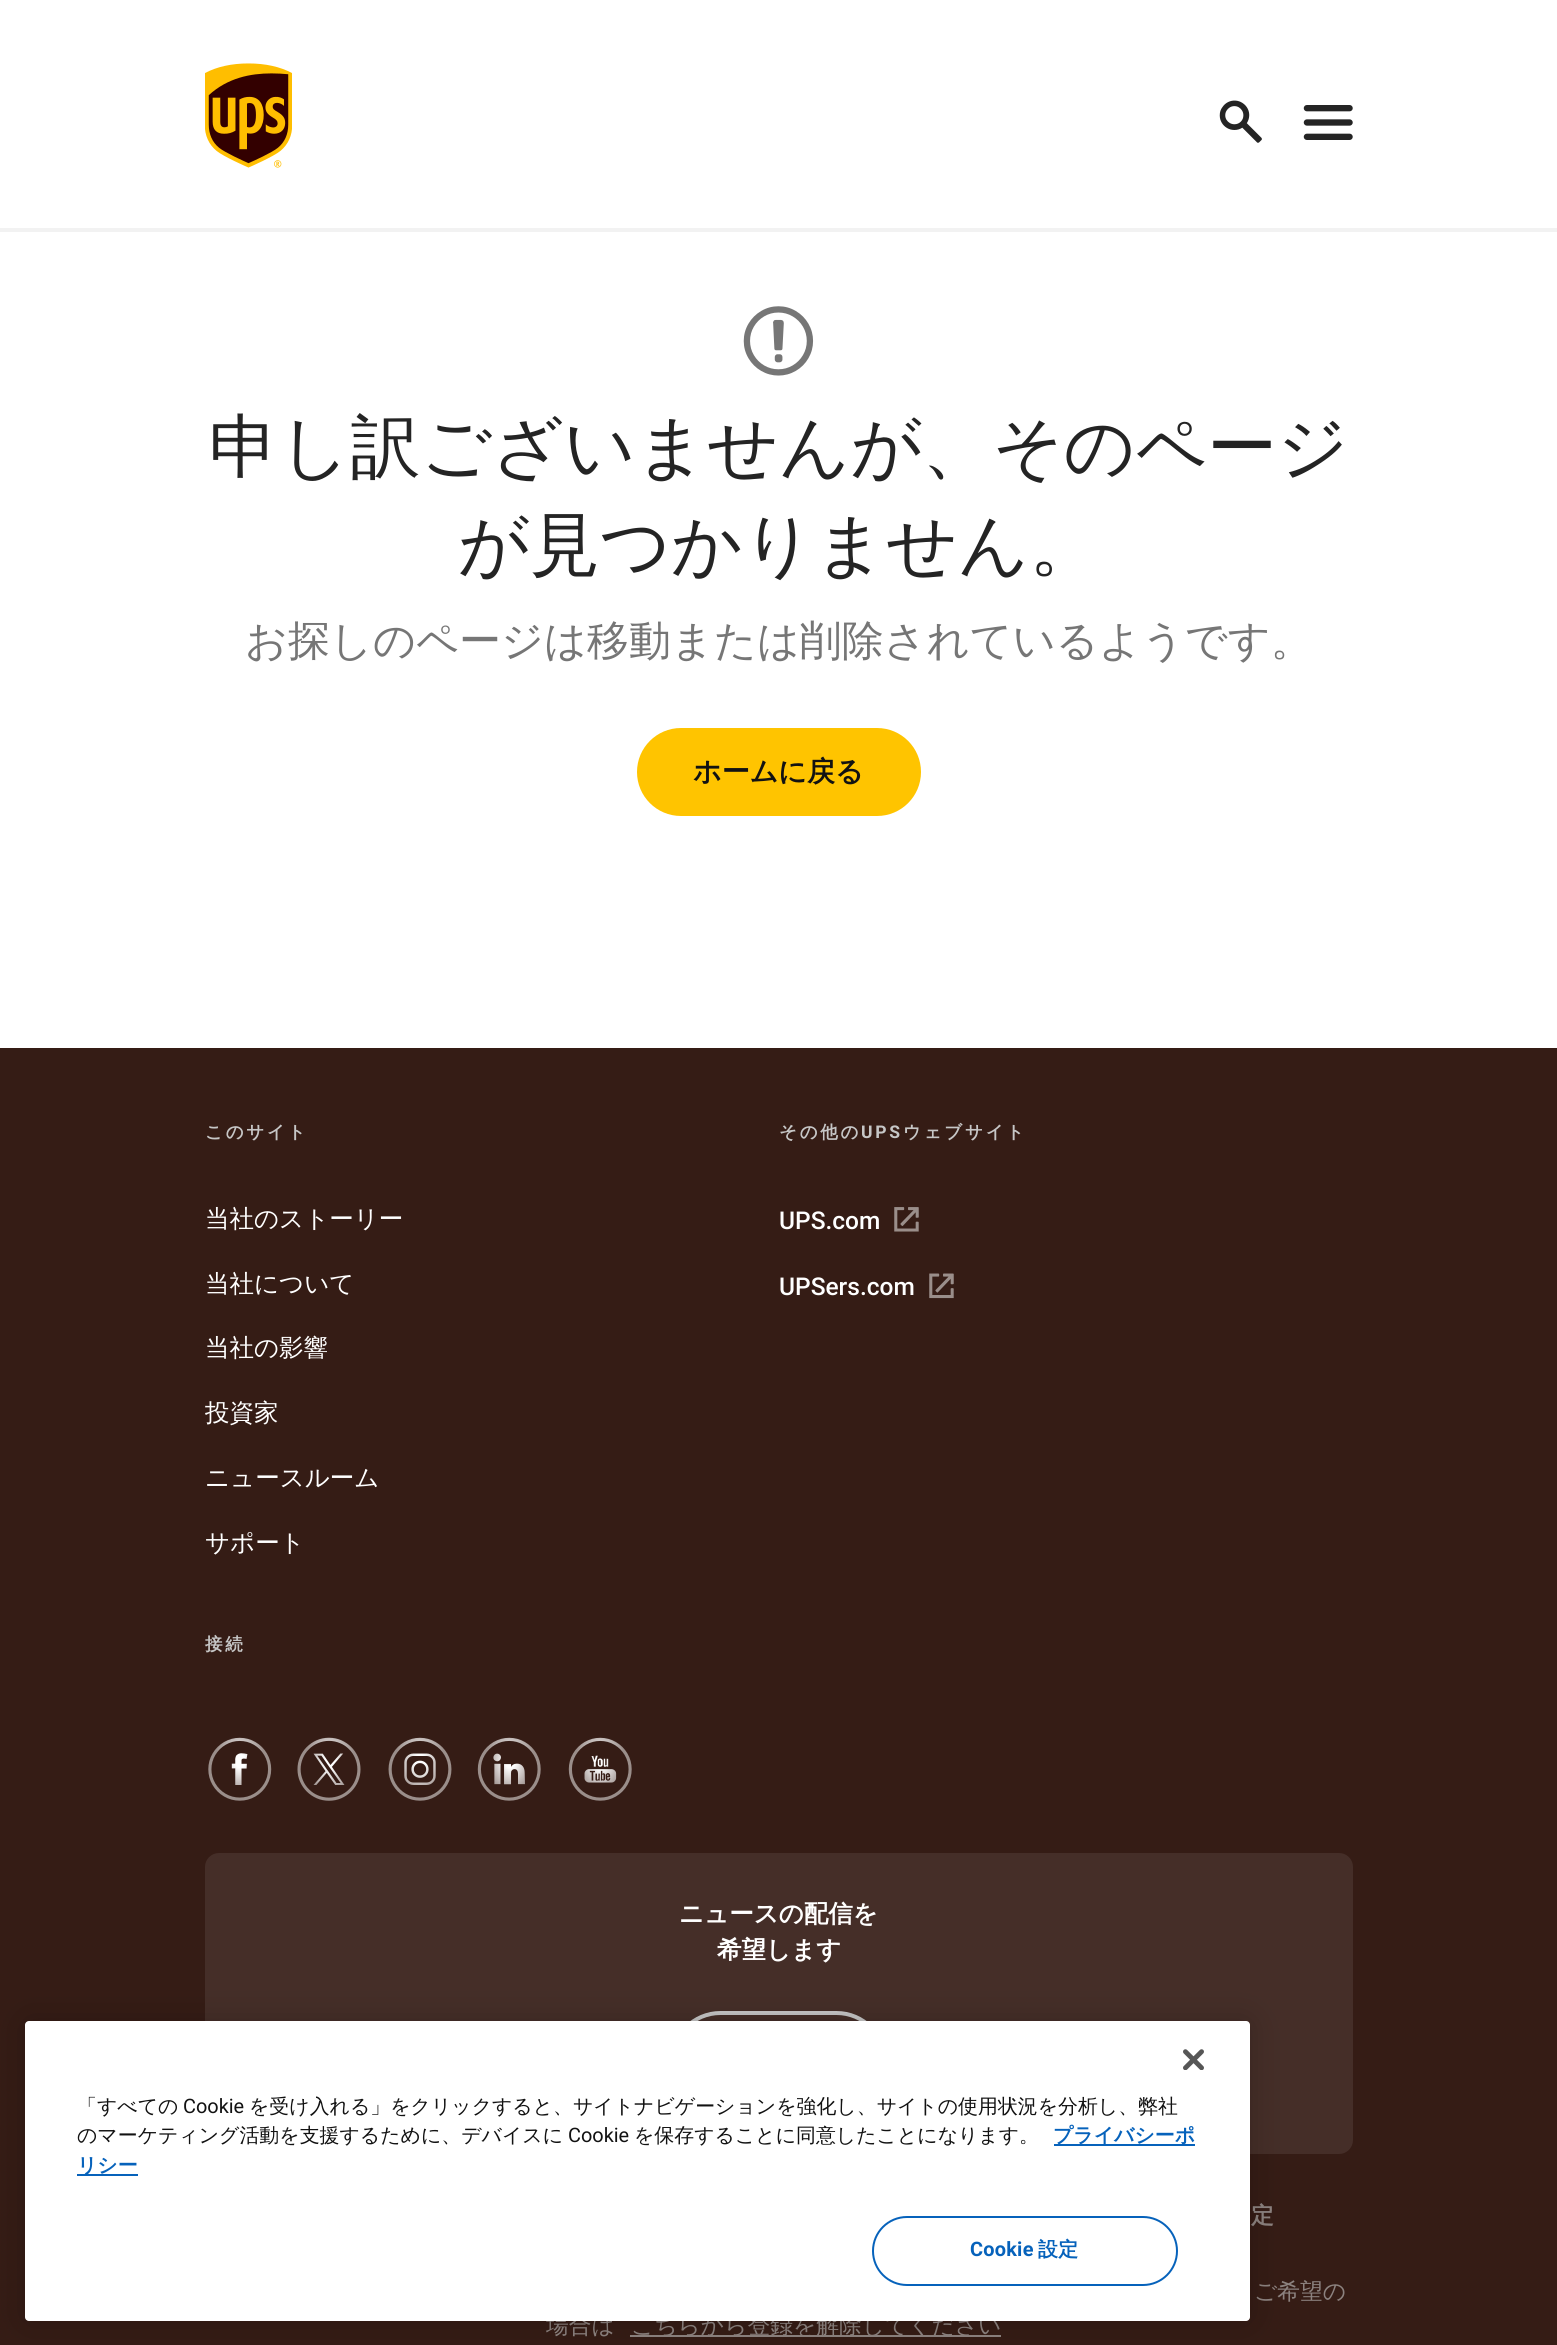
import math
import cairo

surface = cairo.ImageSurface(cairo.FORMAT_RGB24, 1557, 2345)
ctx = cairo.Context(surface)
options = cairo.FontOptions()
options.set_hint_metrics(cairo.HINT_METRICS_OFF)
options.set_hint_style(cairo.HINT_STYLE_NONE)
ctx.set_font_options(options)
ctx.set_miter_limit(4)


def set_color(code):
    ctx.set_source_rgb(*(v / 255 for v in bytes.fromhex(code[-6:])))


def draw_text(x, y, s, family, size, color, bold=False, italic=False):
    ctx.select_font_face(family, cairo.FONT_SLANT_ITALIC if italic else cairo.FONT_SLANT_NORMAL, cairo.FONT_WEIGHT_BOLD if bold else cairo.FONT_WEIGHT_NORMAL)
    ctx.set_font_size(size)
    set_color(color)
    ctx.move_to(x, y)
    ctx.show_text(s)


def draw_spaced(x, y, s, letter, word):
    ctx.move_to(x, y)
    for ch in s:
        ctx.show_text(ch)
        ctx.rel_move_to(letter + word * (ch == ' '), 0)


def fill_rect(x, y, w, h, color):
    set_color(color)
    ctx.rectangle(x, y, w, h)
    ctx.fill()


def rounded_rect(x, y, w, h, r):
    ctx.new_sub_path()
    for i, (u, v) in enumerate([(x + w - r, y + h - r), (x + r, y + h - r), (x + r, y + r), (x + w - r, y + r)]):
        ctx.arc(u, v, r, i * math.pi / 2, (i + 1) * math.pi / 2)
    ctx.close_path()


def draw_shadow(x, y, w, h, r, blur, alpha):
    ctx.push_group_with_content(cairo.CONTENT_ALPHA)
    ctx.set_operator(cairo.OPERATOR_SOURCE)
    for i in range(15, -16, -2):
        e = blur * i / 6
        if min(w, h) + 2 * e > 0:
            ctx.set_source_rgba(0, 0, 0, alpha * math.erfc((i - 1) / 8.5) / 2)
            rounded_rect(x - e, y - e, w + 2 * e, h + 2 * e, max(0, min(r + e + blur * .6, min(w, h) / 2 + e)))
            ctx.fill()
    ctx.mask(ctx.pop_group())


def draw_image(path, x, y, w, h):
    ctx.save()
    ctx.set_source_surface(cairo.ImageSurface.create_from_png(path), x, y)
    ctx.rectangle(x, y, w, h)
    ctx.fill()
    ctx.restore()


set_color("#ffffff")
ctx.paint()
fill_rect(0, 228, 1557, 4, "#f2f2f2")
draw_image("assets/img1.png", 205, 63, 87, 105)
draw_image("assets/img2.png", 1219, 100, 43, 43)
draw_image("assets/img3.png", 1303, 105, 50, 35)
draw_image("assets/img4.png", 743, 306, 71, 70)
draw_text(209, 471, "申し訳ございませんが、そのページ", "WenQuanYi Zen Hei Medium", 70, "#242424")
draw_text(458, 569, "が見つかりません。", "WenQuanYi Zen Hei Medium", 70, "#242424")
draw_text(245, 655, "お探しのページは移動または削除されているようです。", "WenQuanYi Zen Hei Medium", 42, "#767676")
set_color("#ffc400")
rounded_rect(637, 728, 284, 88, 44)
ctx.fill()
draw_text(693, 781, "ホームに戻る", "WenQuanYi Zen Hei", 28, "#121212", bold=True)
fill_rect(0, 1048, 1557, 1297, "#351c15")
ctx.set_font_size(17.5)
set_color("#c6c6c6")
draw_spaced(205, 1138, "このサイト", 2.75, 0)
draw_text(205, 1227, "当社のストーリー", "WenQuanYi Zen Hei Medium", 24.5, "#ffffff")
draw_text(205, 1292, "当社について", "WenQuanYi Zen Hei Medium", 24.5, "#ffffff")
draw_text(205, 1356, "当社の影響", "WenQuanYi Zen Hei Medium", 24.5, "#ffffff")
draw_text(205, 1421, "投資家", "WenQuanYi Zen Hei Medium", 24.5, "#ffffff")
draw_text(205, 1486, "ニュースルーム", "WenQuanYi Zen Hei Medium", 24.5, "#ffffff")
draw_text(205, 1551, "サポート", "WenQuanYi Zen Hei Medium", 24.5, "#ffffff")
ctx.select_font_face("WenQuanYi Zen Hei", cairo.FONT_SLANT_NORMAL, cairo.FONT_WEIGHT_BOLD)
ctx.set_font_size(17.5)
set_color("#c6c6c6")
draw_spaced(779, 1138, "その他の", 2.75, 0)
ctx.select_font_face("Roboto", cairo.FONT_SLANT_NORMAL, cairo.FONT_WEIGHT_BOLD)
draw_spaced(861, 1138, "UPS", 2.75, 0)
ctx.select_font_face("WenQuanYi Zen Hei", cairo.FONT_SLANT_NORMAL, cairo.FONT_WEIGHT_BOLD)
draw_spaced(903, 1138, "ウェブサイト", 2.75, 0)
draw_text(779, 1229, "UPS.com", "Roboto Medium", 24.5, "#ffffff")
draw_image("assets/img5.png", 894, 1207, 25, 25)
draw_text(779, 1295, "UPSers.com", "Roboto Medium", 24.5, "#ffffff")
draw_image("assets/img6.png", 929, 1273, 25, 26)
ctx.select_font_face("WenQuanYi Zen Hei", cairo.FONT_SLANT_NORMAL, cairo.FONT_WEIGHT_BOLD)
ctx.set_font_size(17.5)
set_color("#c6c6c6")
draw_spaced(205, 1650, "接続", 2.75, 0)
draw_image("assets/img7.png", 208, 1737, 64, 64)
draw_image("assets/img8.png", 297, 1737, 64, 64)
draw_image("assets/img9.png", 388, 1737, 64, 64)
draw_image("assets/img10.png", 477, 1737, 64, 64)
draw_image("assets/img11.png", 568, 1737, 64, 64)
set_color("#452e28")
rounded_rect(205, 1853, 1148, 301, 14)
ctx.fill()
draw_text(679, 1922, "ニュースの配信を", "WenQuanYi Zen Hei", 24.5, "#ffffff", bold=True)
draw_text(717, 1958, "希望します", "WenQuanYi Zen Hei", 24.5, "#ffffff", bold=True)
rounded_rect(672, 2013, 213, 97, 48.5)
set_color("#c6c6c6")
ctx.set_line_width(4)
ctx.stroke()
draw_text(1251, 2223, "定", "WenQuanYi Zen Hei", 22.75, "#8c827f", bold=True)
draw_text(1254, 2299, "ご希望の", "WenQuanYi Zen Hei Medium", 22.75, "#8c827f")
draw_text(546, 2333, "場合は", "WenQuanYi Zen Hei Medium", 22.75, "#8c827f")
fill_rect(630, 2335, 371, 2, "#8c827f")
draw_text(631, 2333, "こちらから登録を解除してください", "WenQuanYi Zen Hei Medium", 22.75, "#8c827f")
set_color("#000000")
draw_shadow(25, 2021, 1225, 300, 4, 16, 0.2)
set_color("#ffffff")
rounded_rect(25, 2021, 1225, 300, 4)
ctx.fill()
draw_image("assets/img12.png", 1183, 2049, 21, 21)
draw_text(77, 2113, "「すべての", "WenQuanYi Zen Hei Medium", 19.9, "#121212")
draw_text(183, 2113, "Cookie", "Roboto", 19.9, "#121212")
draw_text(249, 2113, "を受け入れる」をクリックすると、サイトナビゲーションを強化し、サイトの使用状況を分析し、弊社", "WenQuanYi Zen Hei Medium", 19.9, "#121212")
draw_text(77, 2142, "のマーケティング活動を支援するために、デバイスに", "WenQuanYi Zen Hei Medium", 19.9, "#121212")
draw_text(568, 2142, "Cookie", "Roboto", 19.9, "#121212")
draw_text(634, 2142, "を保存することに同意したことになります。", "WenQuanYi Zen Hei Medium", 19.9, "#121212")
fill_rect(1054, 2144, 141, 2, "#0662bb")
draw_text(1053, 2142, "プライバシーポ", "WenQuanYi Zen Hei", 19.9, "#0662bb", bold=True)
fill_rect(77, 2174, 61, 2, "#0662bb")
draw_text(77, 2172, "リシー", "WenQuanYi Zen Hei", 19.9, "#0662bb", bold=True)
rounded_rect(873, 2217, 304, 68, 34)
ctx.set_line_width(2)
ctx.stroke()
ctx.select_font_face("Roboto", cairo.FONT_SLANT_NORMAL, cairo.FONT_WEIGHT_BOLD)
draw_spaced(970, 2256, "Cookie", 0.25, 0)
ctx.select_font_face("WenQuanYi Zen Hei", cairo.FONT_SLANT_NORMAL, cairo.FONT_WEIGHT_BOLD)
draw_spaced(1038, 2256, "設定", 0.25, 0)
surface.write_to_png("output.png")
